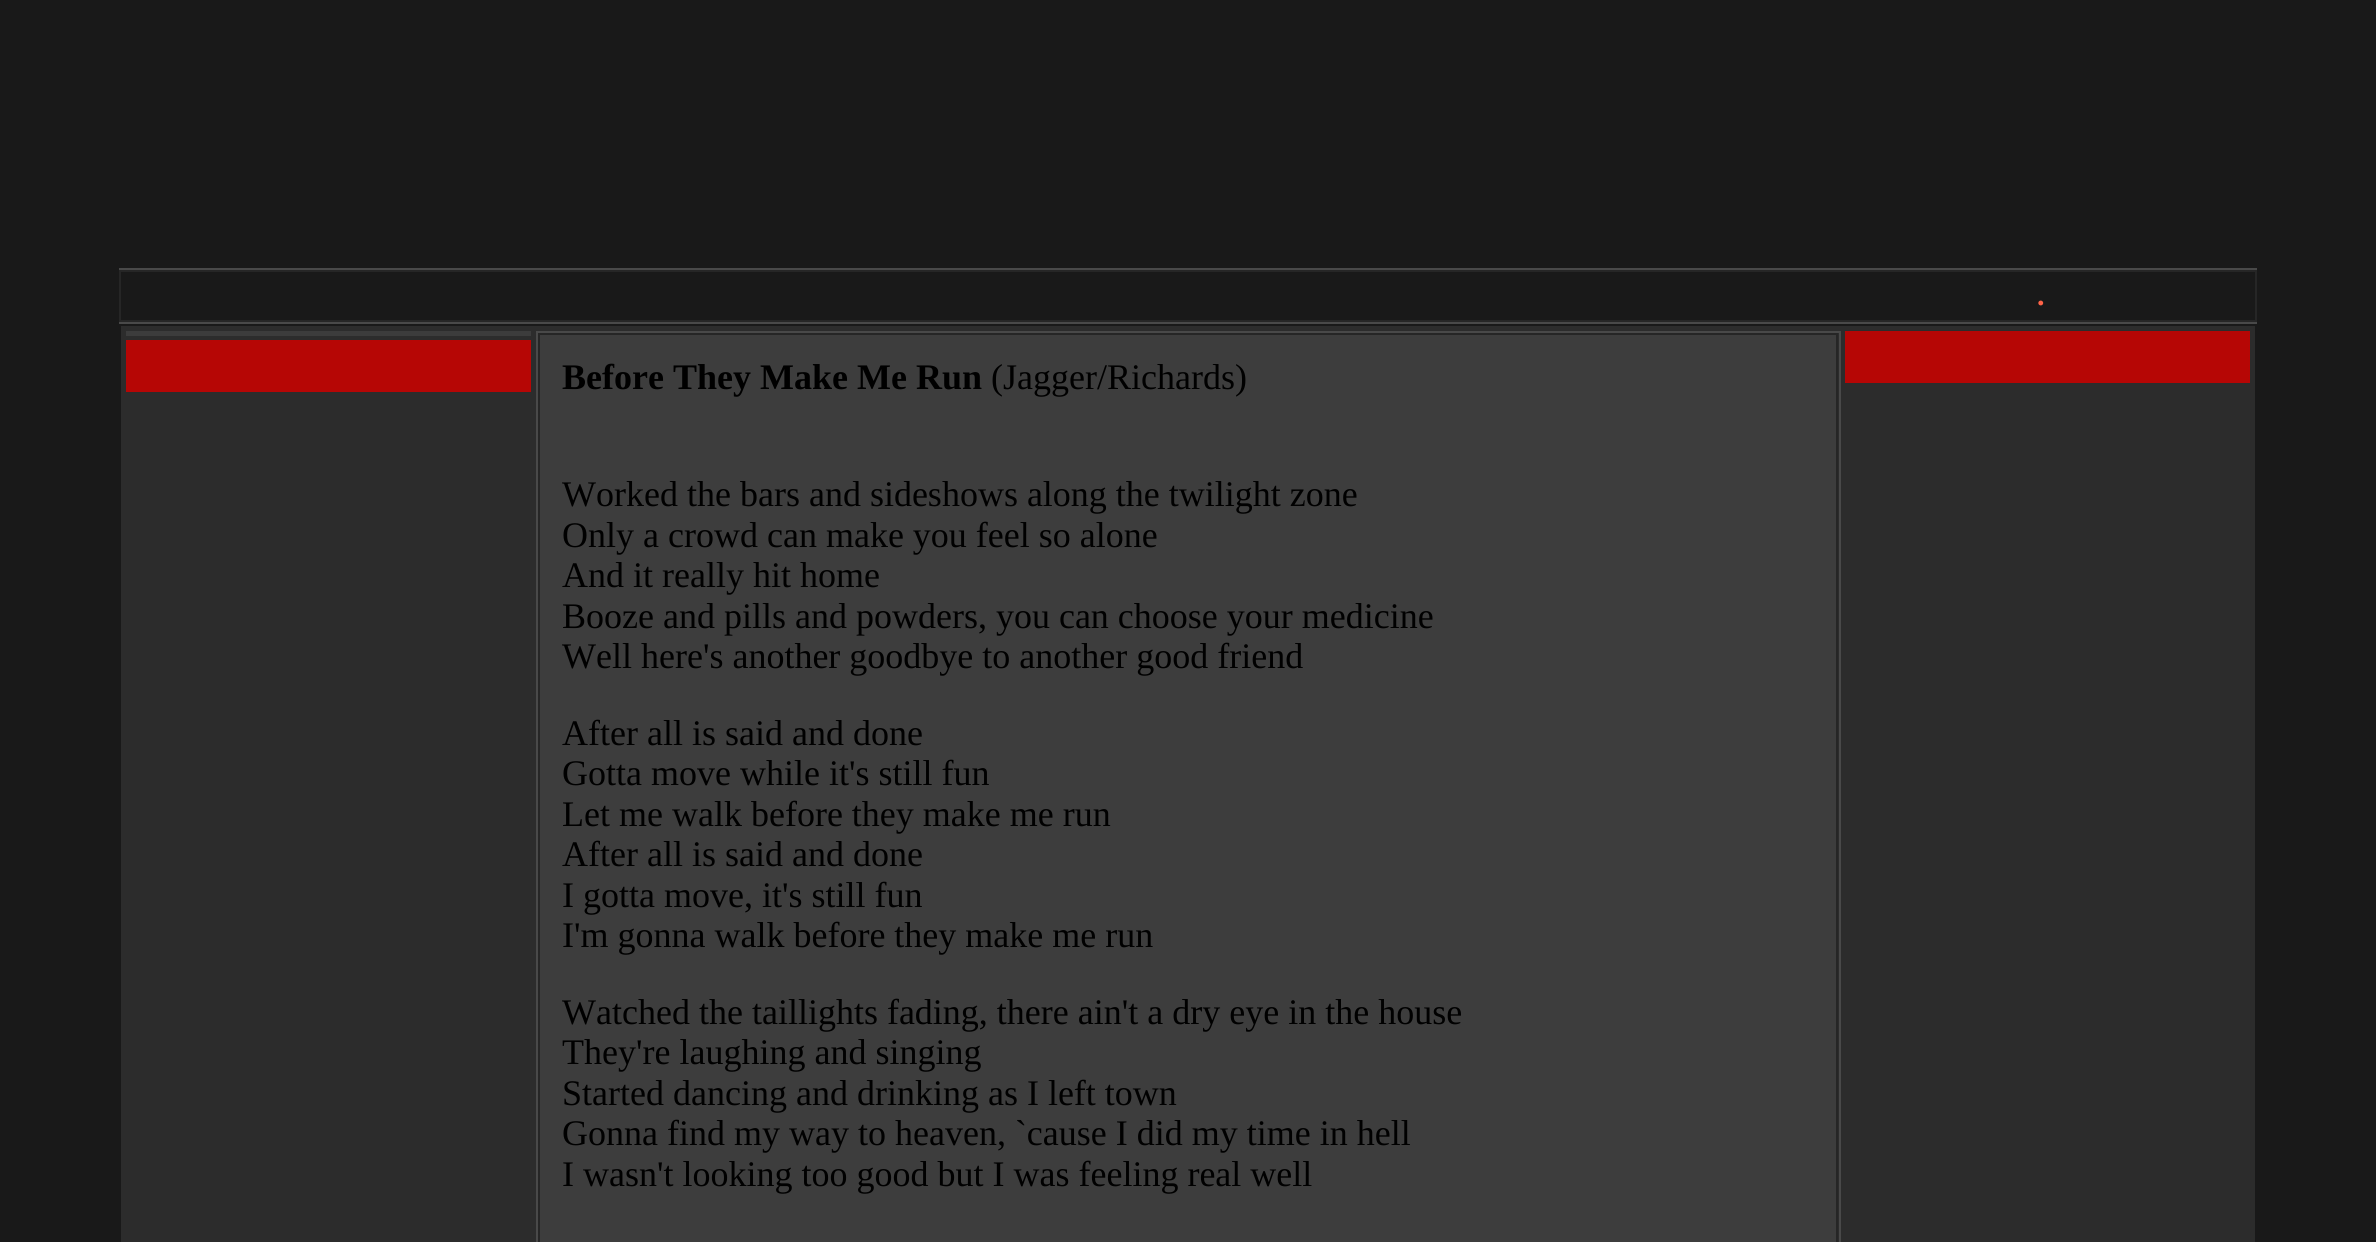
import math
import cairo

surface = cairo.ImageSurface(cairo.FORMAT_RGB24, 2376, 1242)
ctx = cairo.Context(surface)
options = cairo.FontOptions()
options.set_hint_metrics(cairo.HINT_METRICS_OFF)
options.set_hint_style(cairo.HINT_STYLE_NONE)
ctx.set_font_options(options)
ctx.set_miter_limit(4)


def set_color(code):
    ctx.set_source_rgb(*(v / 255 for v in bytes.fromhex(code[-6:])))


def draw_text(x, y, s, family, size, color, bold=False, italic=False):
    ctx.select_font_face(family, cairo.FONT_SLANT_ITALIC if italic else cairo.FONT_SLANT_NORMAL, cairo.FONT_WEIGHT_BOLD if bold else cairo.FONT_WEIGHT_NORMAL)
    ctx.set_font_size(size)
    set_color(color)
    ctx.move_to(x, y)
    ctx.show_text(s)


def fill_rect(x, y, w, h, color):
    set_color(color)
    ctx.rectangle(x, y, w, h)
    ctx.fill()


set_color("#191919")
ctx.paint()
fill_rect(119, 268, 2138, 2, "#494949")
ctx.rectangle(120, 271, 2136, 50)
set_color("#262626")
ctx.stroke()
draw_text(2037, 305, ".", "Liberation Serif", 30, "#ff6347", bold=True)
fill_rect(119, 322, 2138, 2, "#494949")
fill_rect(121, 326, 2134, 916, "#2c2c2c")
fill_rect(126, 331, 405, 5, "#3c3c3c")
fill_rect(126, 340, 405, 52, "#b60605")
fill_rect(1845, 331, 405, 52, "#b60605")
ctx.rectangle(537, 332, 1303, 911)
set_color("#494949")
ctx.stroke()
set_color("#3d3d3d")
ctx.rectangle(539, 334, 1298, 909)
ctx.fill_preserve()
set_color("#262626")
ctx.stroke()
draw_text(562, 389, "Before They Make Me Run", "Liberation Serif", 36, "#000000", bold=True)
draw_text(991, 389, "(Jagger/Richards)", "Liberation Serif", 36, "#000000")
draw_text(562, 506, "Worked the bars and sideshows along the twilight zone", "Liberation Serif", 36, "#000000")
draw_text(562, 547, "Only a crowd can make you feel so alone", "Liberation Serif", 36, "#000000")
draw_text(562, 587, "And it really hit home", "Liberation Serif", 36, "#000000")
draw_text(562, 628, "Booze and pills and powders, you can choose your medicine", "Liberation Serif", 36, "#000000")
draw_text(562, 668, "Well here's another goodbye to another good friend", "Liberation Serif", 36, "#000000")
draw_text(562, 745, "After all is said and done", "Liberation Serif", 36, "#000000")
draw_text(562, 785, "Gotta move while it's still fun", "Liberation Serif", 36, "#000000")
draw_text(562, 826, "Let me walk before they make me run", "Liberation Serif", 36, "#000000")
draw_text(562, 866, "After all is said and done", "Liberation Serif", 36, "#000000")
draw_text(562, 907, "I gotta move, it's still fun", "Liberation Serif", 36, "#000000")
draw_text(562, 947, "I'm gonna walk before they make me run", "Liberation Serif", 36, "#000000")
draw_text(562, 1024, "Watched the taillights fading, there ain't a dry eye in the house", "Liberation Serif", 36, "#000000")
draw_text(562, 1064, "They're laughing and singing", "Liberation Serif", 36, "#000000")
draw_text(562, 1105, "Started dancing and drinking as I left town", "Liberation Serif", 36, "#000000")
draw_text(562, 1145, "Gonna find my way to heaven, `cause I did my time in hell", "Liberation Serif", 36, "#000000")
draw_text(562, 1186, "I wasn't looking too good but I was feeling real well", "Liberation Serif", 36, "#000000")
surface.write_to_png("output.png")
